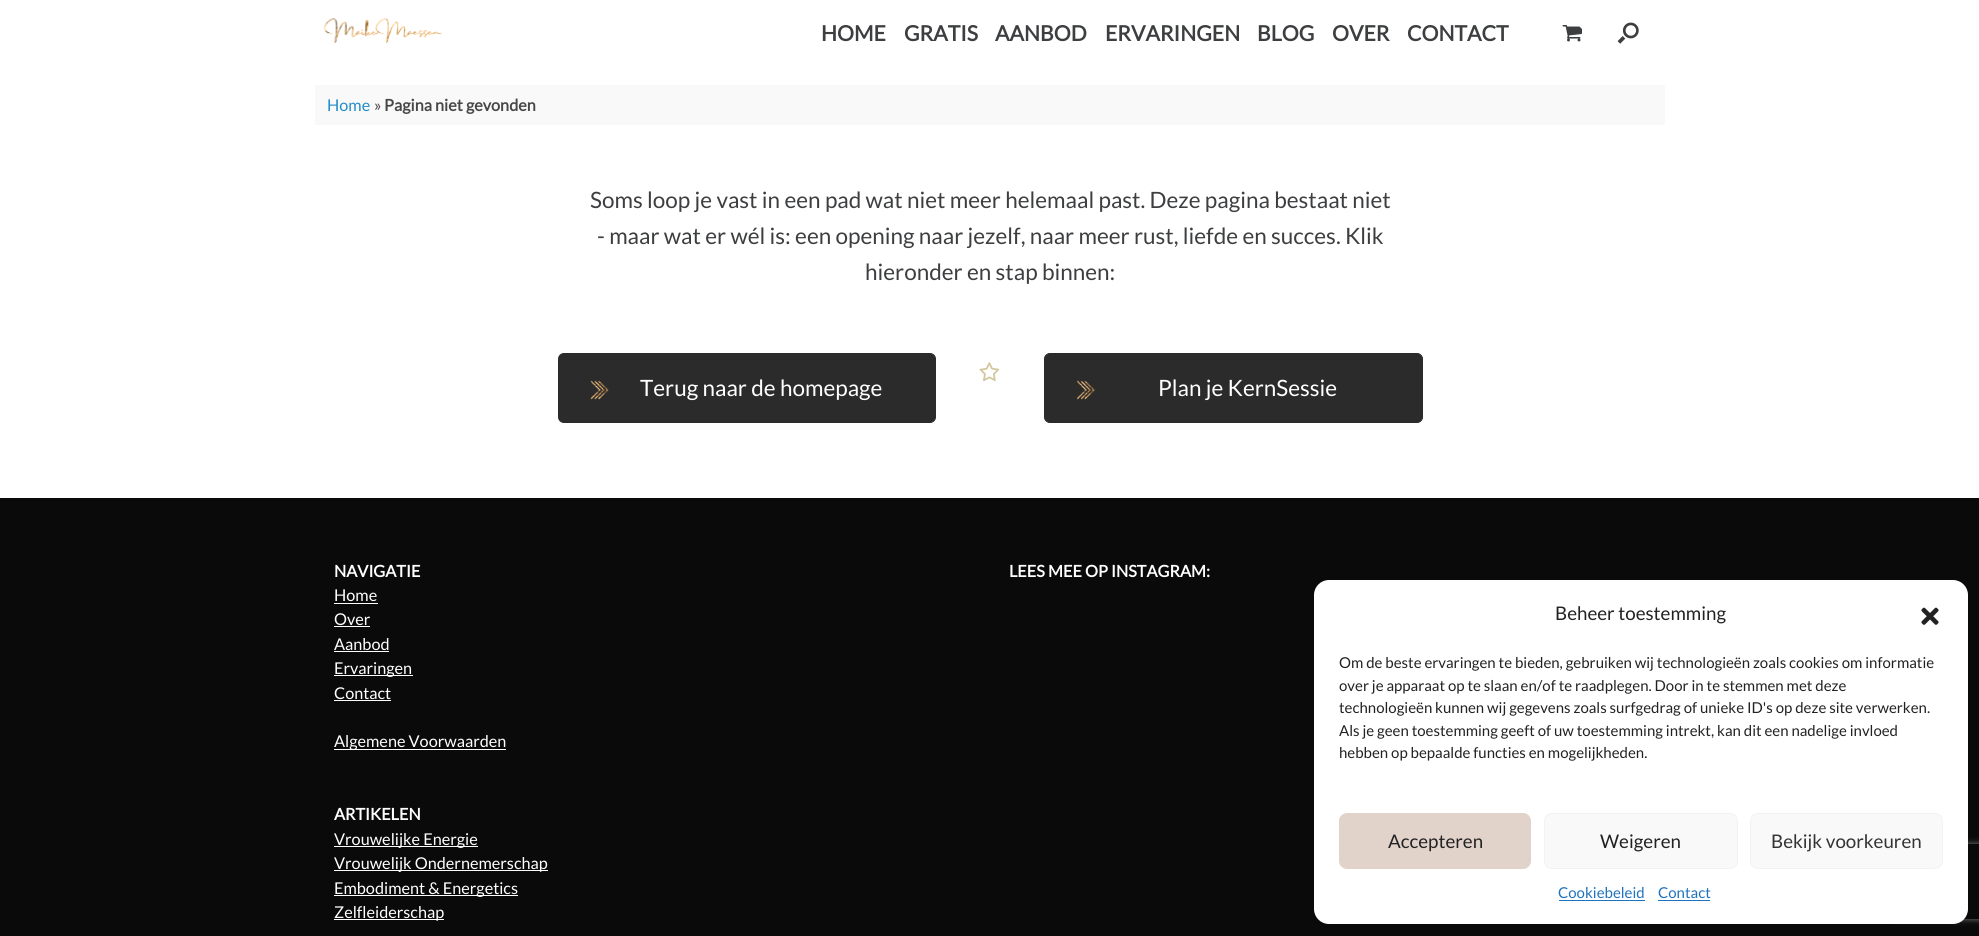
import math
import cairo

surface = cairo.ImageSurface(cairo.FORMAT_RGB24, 1979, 936)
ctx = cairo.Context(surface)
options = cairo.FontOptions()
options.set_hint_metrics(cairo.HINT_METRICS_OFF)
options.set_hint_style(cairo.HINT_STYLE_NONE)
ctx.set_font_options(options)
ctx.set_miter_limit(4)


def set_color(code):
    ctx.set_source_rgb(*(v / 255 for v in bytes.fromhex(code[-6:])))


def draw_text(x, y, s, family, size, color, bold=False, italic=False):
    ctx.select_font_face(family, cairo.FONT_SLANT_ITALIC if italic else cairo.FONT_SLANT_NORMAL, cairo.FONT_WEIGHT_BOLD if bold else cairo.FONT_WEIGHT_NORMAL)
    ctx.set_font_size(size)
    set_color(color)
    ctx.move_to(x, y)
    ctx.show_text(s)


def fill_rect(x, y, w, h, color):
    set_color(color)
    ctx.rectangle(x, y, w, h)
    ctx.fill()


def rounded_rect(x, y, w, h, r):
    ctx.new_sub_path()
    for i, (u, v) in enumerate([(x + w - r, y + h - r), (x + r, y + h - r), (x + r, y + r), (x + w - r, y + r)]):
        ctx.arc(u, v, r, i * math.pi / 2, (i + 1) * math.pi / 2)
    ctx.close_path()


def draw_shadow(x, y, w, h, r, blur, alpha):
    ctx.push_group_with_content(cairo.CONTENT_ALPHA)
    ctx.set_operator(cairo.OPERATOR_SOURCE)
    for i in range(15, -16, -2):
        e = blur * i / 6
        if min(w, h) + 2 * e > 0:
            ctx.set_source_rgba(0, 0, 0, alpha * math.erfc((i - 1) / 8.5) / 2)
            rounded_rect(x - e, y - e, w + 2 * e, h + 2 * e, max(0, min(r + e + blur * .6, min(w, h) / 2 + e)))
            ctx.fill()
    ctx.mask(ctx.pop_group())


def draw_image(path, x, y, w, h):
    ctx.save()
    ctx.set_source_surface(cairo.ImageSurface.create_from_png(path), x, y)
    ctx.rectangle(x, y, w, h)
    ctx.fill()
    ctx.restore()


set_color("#0a0a0a")
ctx.paint()
fill_rect(0, 0, 1979, 498, "#ffffff")
draw_image("assets/img1.png", 323, 18, 119, 25)
draw_text(821, 41, "HOME", "Lato", 21.25, "#3d3e40", bold=True)
draw_text(904, 41, "GRATIS", "Lato", 21.25, "#3d3e40", bold=True)
draw_text(995, 41, "AANBOD", "Lato", 21.25, "#3d3e40", bold=True)
draw_text(1105, 41, "ERVARINGEN", "Lato", 21.25, "#3d3e40", bold=True)
draw_text(1257, 41, "BLOG", "Lato", 21.25, "#3d3e40", bold=True)
draw_text(1332, 41, "OVER", "Lato", 21.25, "#3d3e40", bold=True)
draw_text(1407, 41, "CONTACT", "Lato", 21.25, "#3d3e40", bold=True)
draw_image("assets/img2.png", 1562, 25, 20, 17)
set_color("#ffffff")
ctx.arc(1588, 21, 10, 0, 2 * math.pi)
ctx.fill()
draw_image("assets/img3.png", 1617, 22, 22, 22)
fill_rect(315, 85, 1350, 40, "#f9f9f9")
draw_text(327, 111, "Home", "Lato", 16.25, "#248cc8")
draw_text(374, 111, "»", "Lato", 16.25, "#474747")
draw_text(384, 111, "Pagina niet gevonden", "Lato", 16.25, "#474747", bold=True)
draw_text(590, 208, "Soms loop je vast in een pad wat niet meer helemaal past. Deze pagina bestaat niet", "Lato", 22.5, "#3d3e40")
draw_text(597, 244, "- maar wat er wél is: een opening naar jezelf, naar meer rust, liefde en succes. Klik", "Lato", 22.5, "#3d3e40")
draw_text(865, 280, "hieronder en stap binnen:", "Lato", 22.5, "#3d3e40")
draw_image("assets/img4.png", 979, 362, 21, 19)
set_color("#2b2b2b")
rounded_rect(558.5, 353.5, 377, 69, 5.5)
ctx.fill_preserve()
ctx.set_line_width(1)
ctx.stroke()
draw_image("assets/img5.png", 590, 380, 19, 20)
draw_text(640, 396, "Terug naar de homepage", "Lato", 22.5, "#ffffff")
set_color("#2b2b2b")
rounded_rect(1044.5, 353.5, 378, 69, 5.5)
ctx.fill_preserve()
ctx.stroke()
draw_image("assets/img6.png", 1076, 380, 19, 20)
draw_text(1158, 396, "Plan je KernSessie", "Lato", 22.5, "#ffffff")
draw_text(334, 577, "NAVIGATIE", "Lato", 16.25, "#ffffff", bold=True)
draw_text(334, 601, "Home", "Lato", 16.25, "#ffffff")
fill_rect(334, 603, 44, 1, "#ffffff")
draw_text(334, 625, "Over", "Lato", 16.25, "#ffffff")
fill_rect(334, 626, 36, 1, "#ffffff")
draw_text(334, 650, "Aanbod", "Lato", 16.25, "#ffffff")
fill_rect(334, 651, 55, 1, "#ffffff")
fill_rect(334, 675, 79, 1, "#ffffff")
draw_text(334, 674, "Ervaringen", "Lato", 16.25, "#ffffff")
draw_text(334, 699, "Contact", "Lato", 16.25, "#ffffff")
fill_rect(334, 700, 57, 1, "#ffffff")
fill_rect(334, 749, 172, 1, "#ffffff")
draw_text(334, 747, "Algemene Voorwaarden", "Lato", 16.25, "#ffffff")
draw_text(334, 820, "ARTIKELEN", "Lato", 16.25, "#ffffff", bold=True)
fill_rect(334, 846, 144, 1, "#ffffff")
draw_text(334, 845, "Vrouwelijke Energie", "Lato", 16.25, "#ffffff")
fill_rect(334, 870, 214, 1, "#ffffff")
draw_text(334, 869, "Vrouwelijk Ondernemerschap", "Lato", 16.25, "#ffffff")
fill_rect(334, 895, 184, 1, "#ffffff")
draw_text(334, 894, "Embodiment & Energetics", "Lato", 16.25, "#ffffff")
fill_rect(334, 919, 110, 1, "#ffffff")
draw_text(334, 918, "Zelfleiderschap", "Lato", 16.25, "#ffffff")
draw_text(1009, 577, "LEES MEE OP INSTAGRAM:", "Lato", 16.25, "#ffffff", bold=True)
ctx.save()
ctx.set_fill_rule(cairo.FILL_RULE_EVEN_ODD)
ctx.new_path()
ctx.move_to(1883, 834)
ctx.line_to(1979, 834)
ctx.line_to(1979, 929)
ctx.line_to(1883, 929)
ctx.close_path()
ctx.move_to(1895.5, 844)
ctx.line_to(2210.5, 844)
ctx.curve_to(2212, 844, 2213, 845, 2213, 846.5)
ctx.line_to(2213, 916.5)
ctx.curve_to(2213, 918, 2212, 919, 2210.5, 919)
ctx.line_to(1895.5, 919)
ctx.curve_to(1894, 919, 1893, 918, 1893, 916.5)
ctx.line_to(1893, 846.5)
ctx.curve_to(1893, 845, 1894, 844, 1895.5, 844)
ctx.close_path()
ctx.clip()
set_color("#808080")
draw_shadow(1893, 844, 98, 75, 2.5, 3, 1)
ctx.restore()
rounded_rect(1314, 580, 654, 344, 15)
ctx.fill()
draw_text(1555, 620, "Beheer toestemming", "Lato", 18.75, "#222222")
draw_image("assets/img7.png", 1921, 607, 18, 18)
draw_text(1339, 668, "Om de beste ervaringen te bieden, gebruiken wij technologieën zoals cookies om informatie", "Lato", 15, "#222222")
draw_text(1339, 691, "over je apparaat op te slaan en/of te raadplegen. Door in te stemmen met deze", "Lato", 15, "#222222")
draw_text(1339, 713, "technologieën kunnen wij gegevens zoals surfgedrag of unieke ID's op deze site verwerken.", "Lato", 15, "#222222")
draw_text(1339, 736, "Als je geen toestemming geeft of uw toestemming intrekt, kan dit een nadelige invloed", "Lato", 15, "#222222")
draw_text(1339, 758, "hebben op bepaalde functies en mogelijkheden.", "Lato", 15, "#222222")
set_color("#e2d3ca")
rounded_rect(1339.5, 813.5, 191, 55, 7.5)
ctx.fill_preserve()
ctx.stroke()
draw_text(1388, 848, "Accepteren", "Lato", 18.75, "#222222")
set_color("#f9f9f9")
rounded_rect(1544.5, 813.5, 193, 55, 7.5)
ctx.fill_preserve()
set_color("#f2f2f2")
ctx.stroke()
draw_text(1600, 848, "Weigeren", "Lato", 18.75, "#222222")
set_color("#f9f9f9")
rounded_rect(1750.5, 813.5, 192, 55, 7.5)
ctx.fill_preserve()
set_color("#f2f2f2")
ctx.stroke()
draw_text(1771, 848, "Bekijk voorkeuren", "Lato", 18.75, "#333333")
draw_text(1558, 898, "Cookiebeleid", "Lato", 15, "#1e73be")
fill_rect(1559, 900, 86, 1, "#1e73be")
draw_text(1658, 898, "Contact", "Lato", 15, "#1e73be")
fill_rect(1658, 900, 52, 1, "#1e73be")
surface.write_to_png("output.png")
